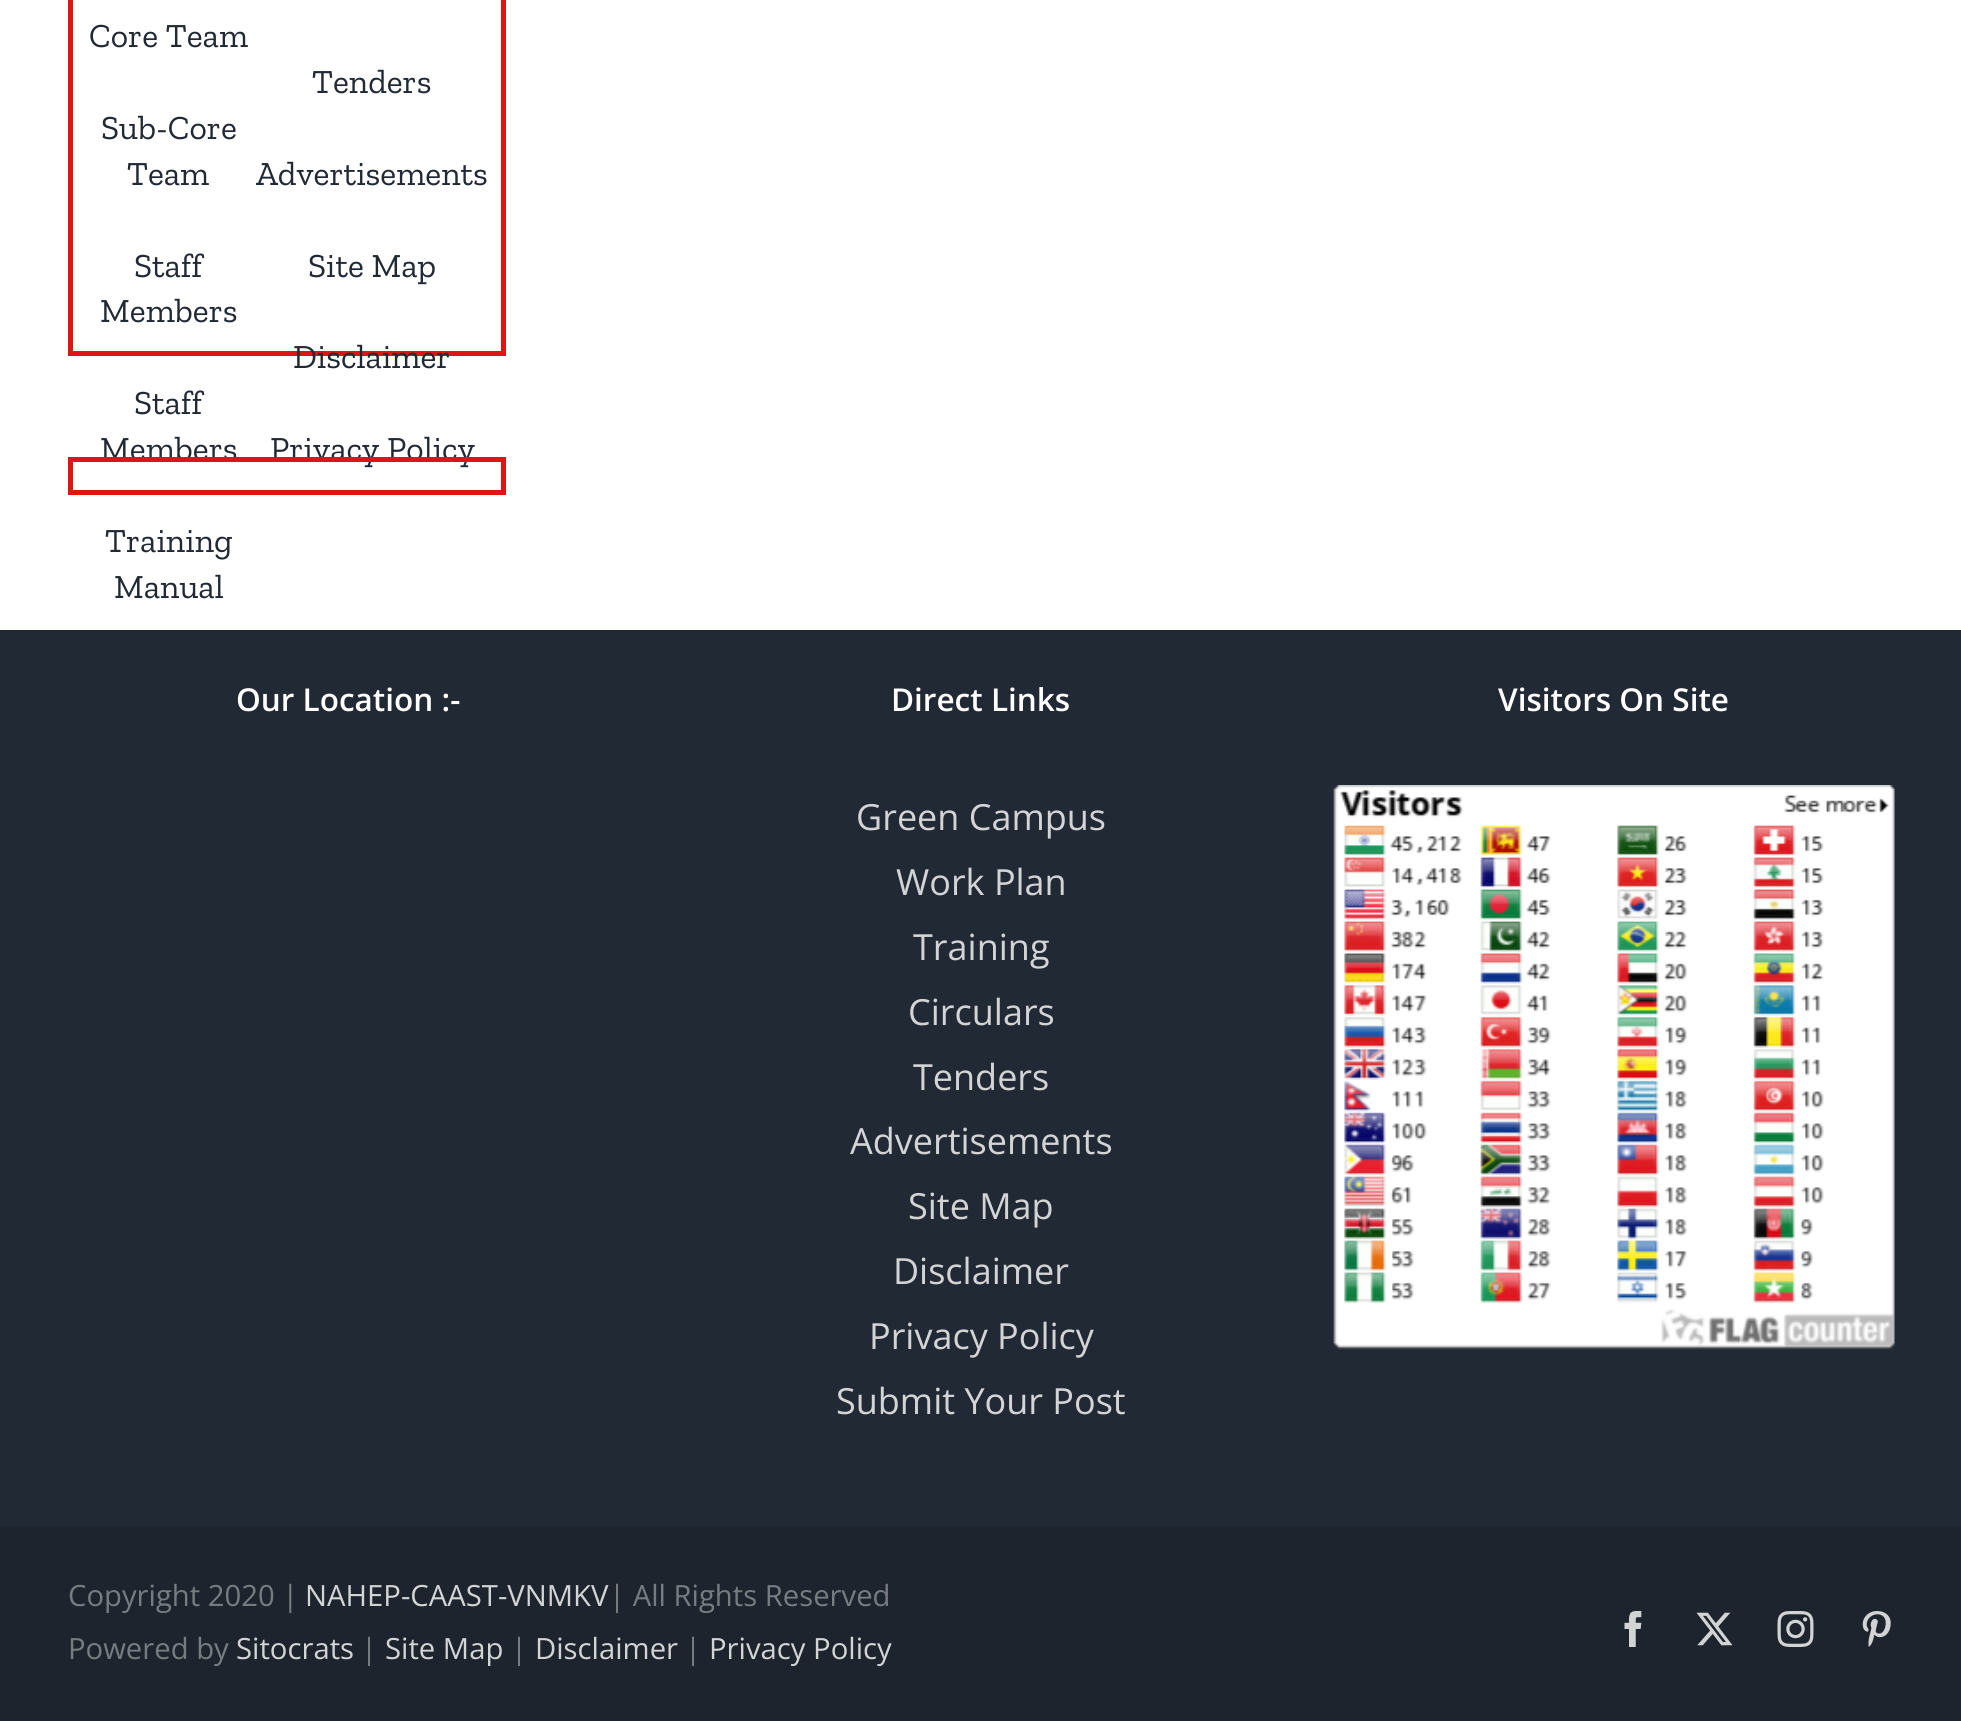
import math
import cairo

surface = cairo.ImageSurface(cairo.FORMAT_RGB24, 1961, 1721)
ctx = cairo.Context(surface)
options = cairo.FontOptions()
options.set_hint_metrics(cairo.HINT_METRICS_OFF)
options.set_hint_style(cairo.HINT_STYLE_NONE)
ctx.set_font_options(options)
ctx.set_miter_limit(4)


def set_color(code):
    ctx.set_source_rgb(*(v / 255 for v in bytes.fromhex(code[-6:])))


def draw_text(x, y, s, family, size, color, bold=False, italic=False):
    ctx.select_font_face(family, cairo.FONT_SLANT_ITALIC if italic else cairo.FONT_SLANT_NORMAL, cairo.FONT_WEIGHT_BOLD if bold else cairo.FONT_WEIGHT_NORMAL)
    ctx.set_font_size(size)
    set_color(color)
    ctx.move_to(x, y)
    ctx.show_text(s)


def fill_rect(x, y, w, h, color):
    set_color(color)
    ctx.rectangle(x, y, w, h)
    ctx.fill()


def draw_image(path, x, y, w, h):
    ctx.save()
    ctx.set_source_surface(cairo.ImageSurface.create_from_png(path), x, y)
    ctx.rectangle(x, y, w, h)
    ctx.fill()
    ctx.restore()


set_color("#ffffff")
ctx.paint()
ctx.rectangle(70.5, -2.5, 433, 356)
set_color("#dd1515")
ctx.set_line_width(5)
ctx.stroke()
draw_text(89, 47, "Core Team", "Zilla Slab", 33.75, "#212934")
draw_text(101, 139, "Sub-Core", "Zilla Slab", 33.75, "#212934")
draw_text(127, 185, "Team", "Zilla Slab", 33.75, "#212934")
draw_text(134, 277, "Staff", "Zilla Slab", 33.75, "#212934")
draw_text(100, 322, "Members", "Zilla Slab", 33.75, "#212934")
draw_text(134, 414, "Staff", "Zilla Slab", 33.75, "#212934")
draw_text(100, 460, "Members", "Zilla Slab", 33.75, "#212934")
draw_text(105, 552, "Training", "Zilla Slab", 33.75, "#212934")
draw_text(114, 598, "Manual", "Zilla Slab", 33.75, "#212934")
draw_text(312, 93, "Tenders", "Zilla Slab", 33.75, "#212934")
draw_text(256, 185, "Advertisements", "Zilla Slab", 33.75, "#212934")
draw_text(308, 277, "Site Map", "Zilla Slab", 33.75, "#212934")
draw_text(293, 368, "Disclaimer", "Zilla Slab", 33.75, "#212934")
draw_text(270, 460, "Privacy Policy", "Zilla Slab", 33.75, "#212934")
ctx.rectangle(70.5, 459.5, 433, 33)
set_color("#dd1515")
ctx.stroke()
fill_rect(0, 630, 1961, 896, "#212934")
draw_text(236, 711, "Our Location :-", "Open Sans SemiBold", 31.5, "#ffffff")
draw_text(891, 711, "Direct Links", "Open Sans SemiBold", 31.5, "#ffffff")
draw_text(856, 830, "Green Campus", "Open Sans", 36, "#d3d4d6")
draw_text(896, 895, "Work Plan", "Open Sans", 36, "#d3d4d6")
draw_text(913, 960, "Training", "Open Sans", 36, "#d3d4d6")
draw_text(908, 1025, "Circulars", "Open Sans", 36, "#d3d4d6")
draw_text(913, 1090, "Tenders", "Open Sans", 36, "#d3d4d6")
draw_text(850, 1154, "Advertisements", "Open Sans", 36, "#d3d4d6")
draw_text(908, 1219, "Site Map", "Open Sans", 36, "#d3d4d6")
draw_text(893, 1284, "Disclaimer", "Open Sans", 36, "#d3d4d6")
draw_text(869, 1349, "Privacy Policy", "Open Sans", 36, "#d3d4d6")
draw_text(836, 1414, "Submit Your Post", "Open Sans", 36, "#d3d4d6")
draw_text(1498, 711, "Visitors On Site", "Open Sans SemiBold", 31.5, "#ffffff")
draw_image("assets/img1.png", 1333, 785, 562, 565)
fill_rect(0, 1526, 1961, 195, "#1d242d")
draw_text(68, 1606, "Copyright 2020 |", "Open Sans", 29.25, "#777c81")
draw_text(305, 1606, "NAHEP-CAAST-VNMKV", "Open Sans", 29.25, "#d3d4d6")
draw_text(609, 1606, "| All Rights Reserved", "Open Sans", 29.25, "#777c81")
draw_text(68, 1659, "Powered by", "Open Sans", 29.25, "#777c81")
draw_text(236, 1659, "Sitocrats", "Open Sans", 29.25, "#d3d4d6")
draw_text(361, 1659, "|", "Open Sans", 29.25, "#777c81")
draw_text(385, 1659, "Site Map", "Open Sans", 29.25, "#d3d4d6")
draw_text(511, 1659, "|", "Open Sans", 29.25, "#777c81")
draw_text(535, 1659, "Disclaimer", "Open Sans", 29.25, "#d3d4d6")
draw_text(685, 1659, "|", "Open Sans", 29.25, "#777c81")
draw_text(709, 1659, "Privacy Policy", "Open Sans", 29.25, "#d3d4d6")
draw_image("assets/img2.png", 1624, 1611, 18, 36)
draw_image("assets/img3.png", 1696, 1612, 37, 34)
draw_image("assets/img4.png", 1777, 1611, 37, 36)
draw_image("assets/img5.png", 1862, 1611, 29, 36)
surface.write_to_png("output.png")
